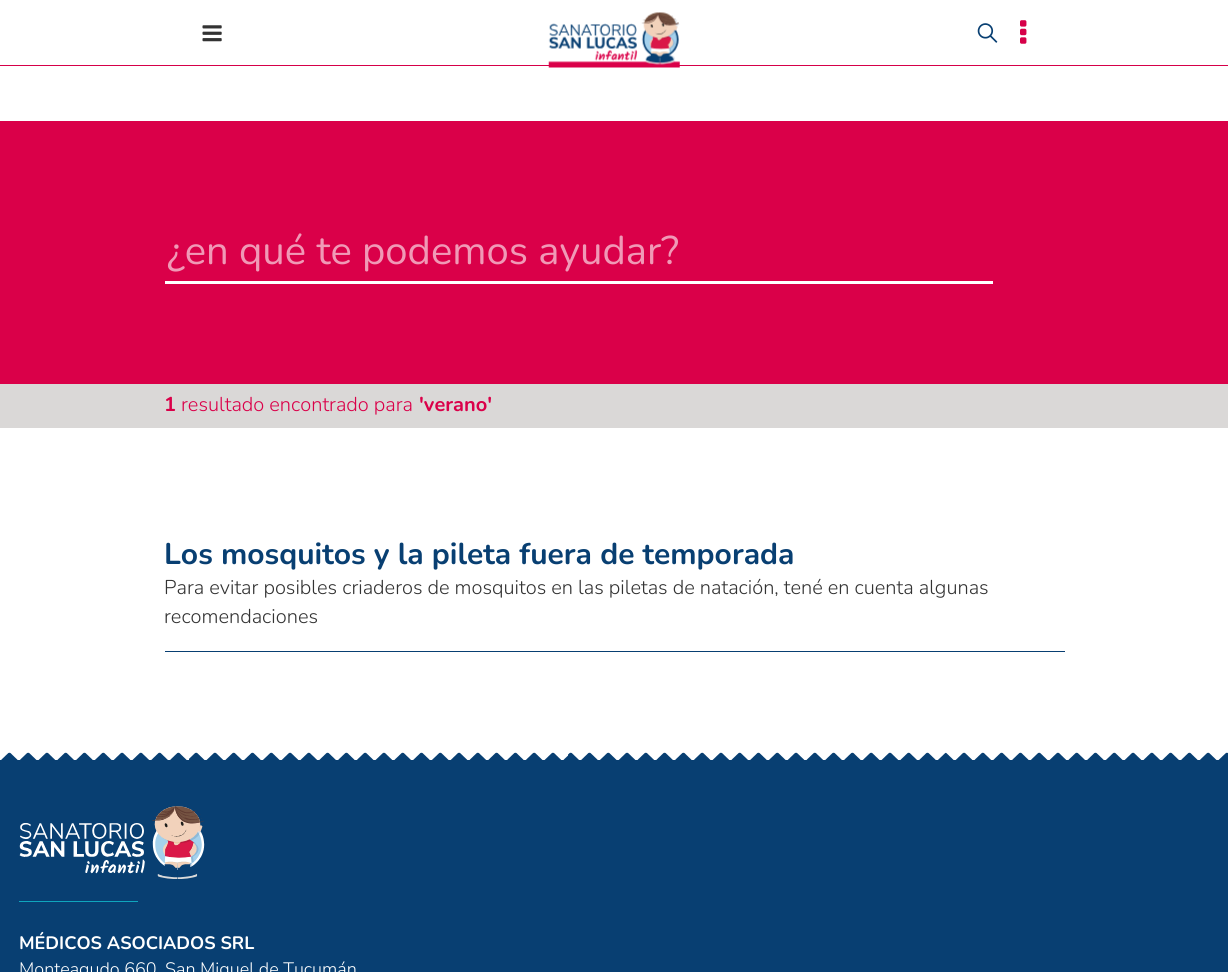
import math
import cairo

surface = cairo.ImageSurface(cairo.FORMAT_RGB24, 1228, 972)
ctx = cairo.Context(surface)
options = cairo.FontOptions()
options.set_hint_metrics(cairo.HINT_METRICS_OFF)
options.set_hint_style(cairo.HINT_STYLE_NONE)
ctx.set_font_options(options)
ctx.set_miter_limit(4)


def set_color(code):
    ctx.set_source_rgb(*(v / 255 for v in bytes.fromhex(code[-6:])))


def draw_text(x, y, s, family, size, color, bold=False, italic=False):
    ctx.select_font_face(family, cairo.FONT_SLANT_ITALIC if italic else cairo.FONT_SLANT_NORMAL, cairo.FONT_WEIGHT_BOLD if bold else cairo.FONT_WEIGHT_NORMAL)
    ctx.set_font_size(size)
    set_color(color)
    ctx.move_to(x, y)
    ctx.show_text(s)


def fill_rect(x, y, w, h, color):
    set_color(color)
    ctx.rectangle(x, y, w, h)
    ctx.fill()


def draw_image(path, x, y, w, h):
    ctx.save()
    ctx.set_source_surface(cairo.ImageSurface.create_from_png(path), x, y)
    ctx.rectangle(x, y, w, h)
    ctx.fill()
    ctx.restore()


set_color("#ffffff")
ctx.paint()
fill_rect(0, 65, 1228, 1, "#d60049")
draw_image("assets/img1.png", 202, 25, 20, 17)
draw_image("assets/img2.png", 548, 12, 132, 56)
draw_image("assets/img3.png", 977, 23, 21, 20)
draw_image("assets/img4.png", 1020, 20, 7, 24)
fill_rect(0, 121, 1228, 263, "#da0049")
fill_rect(165, 281, 828, 3, "#ffffff")
draw_text(167, 264, "¿en qué te podemos ayudar?", "Nunito", 40, "#f099b6")
fill_rect(0, 384, 1228, 44, "#dad8d7")
draw_text(164, 411, "1", "Nunito", 20, "#da0049", bold=True)
draw_text(181, 411, "resultado encontrado para", "Nunito Light", 20, "#da0049")
draw_text(419, 411, "'verano'", "Nunito", 20, "#da0049", bold=True)
fill_rect(165, 651, 900, 1, "#083f72")
draw_text(164, 564, "Los mosquitos y la pileta fuera de temporada", "Nunito", 30, "#083f72", bold=True)
draw_text(164, 594, "Para evitar posibles criaderos de mosquitos en las piletas de natación, tené en cuenta algunas", "Nunito Light", 20, "#333333")
draw_text(164, 623, "recomendaciones", "Nunito Light", 20, "#333333")
fill_rect(0, 760, 1228, 212, "#083f72")
draw_image("assets/img5.png", 1, 752, 1227, 8)
draw_image("assets/img6.png", 19, 806, 186, 73)
fill_rect(19, 901, 119, 1, "#0fa6be")
draw_text(19, 949, "MÉDICOS ASOCIADOS SRL", "Nunito", 18, "#ffffff", bold=True)
draw_text(19, 975, "Monteagudo 660, San Miguel de Tucumán", "Nunito Light", 18, "#ffffff")
surface.write_to_png("output.png")
